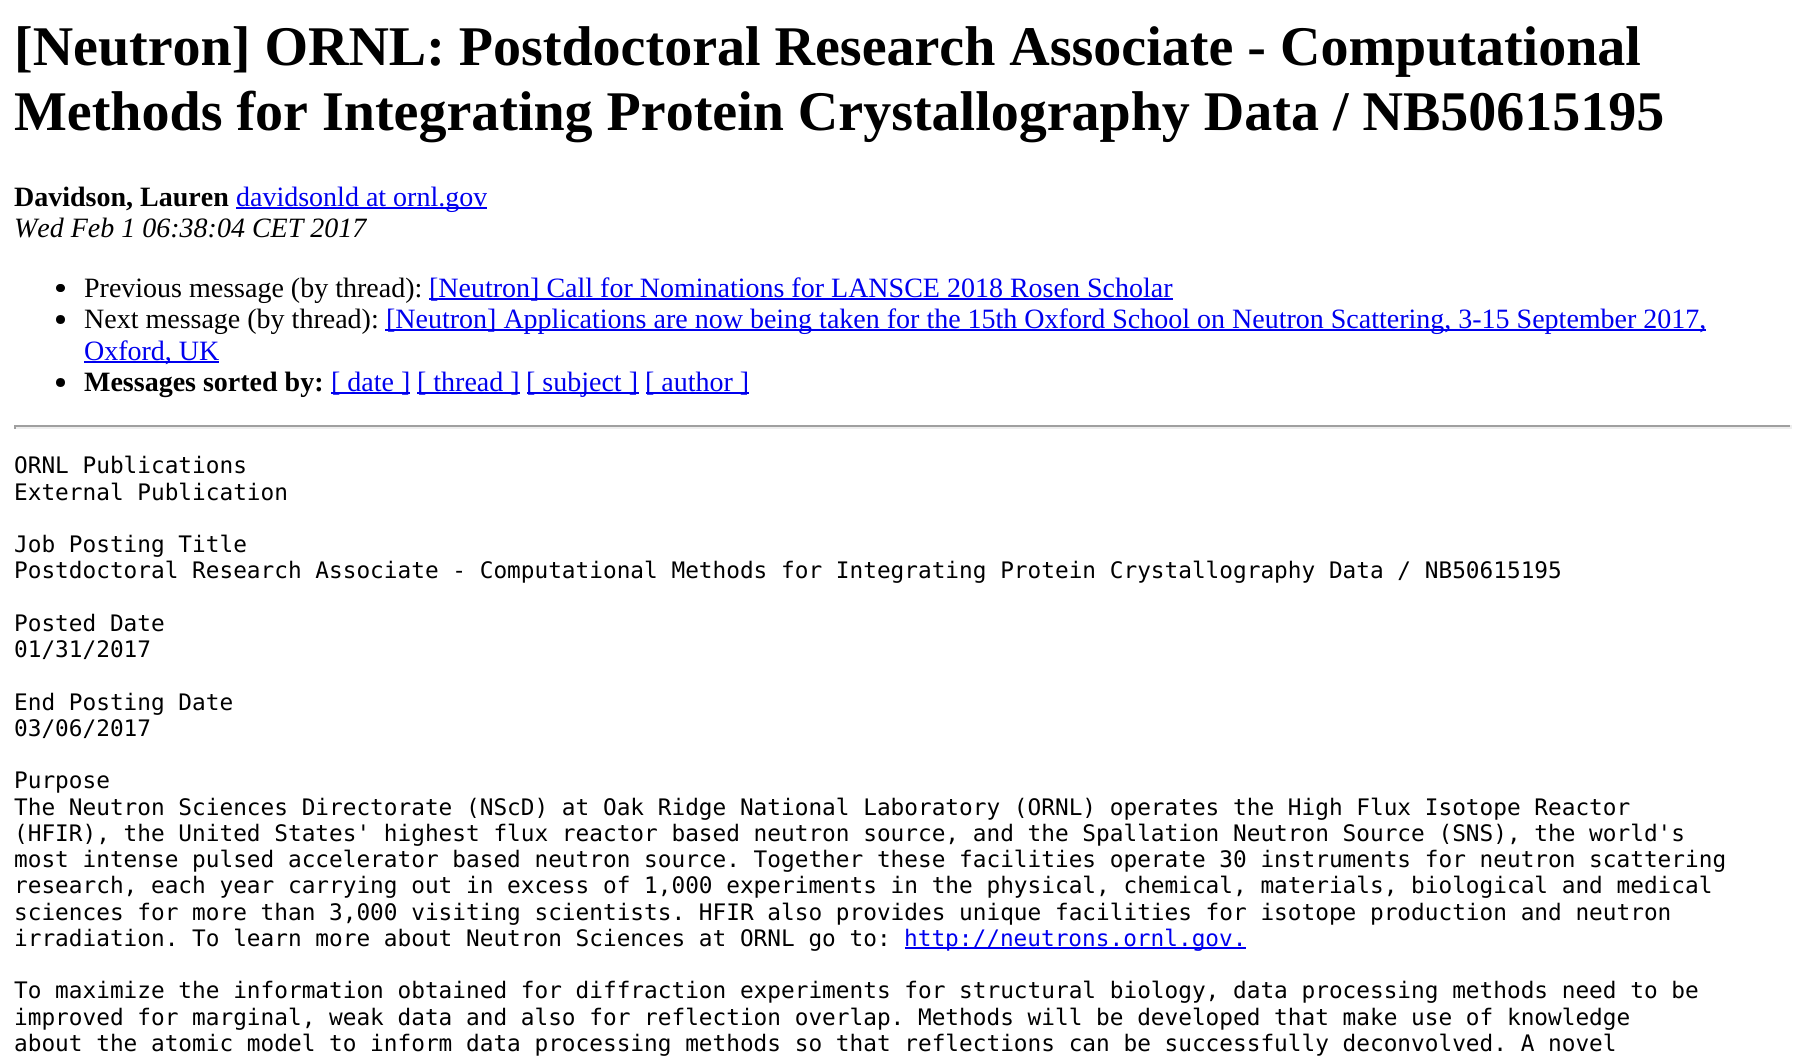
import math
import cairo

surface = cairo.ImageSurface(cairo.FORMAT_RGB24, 1805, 1057)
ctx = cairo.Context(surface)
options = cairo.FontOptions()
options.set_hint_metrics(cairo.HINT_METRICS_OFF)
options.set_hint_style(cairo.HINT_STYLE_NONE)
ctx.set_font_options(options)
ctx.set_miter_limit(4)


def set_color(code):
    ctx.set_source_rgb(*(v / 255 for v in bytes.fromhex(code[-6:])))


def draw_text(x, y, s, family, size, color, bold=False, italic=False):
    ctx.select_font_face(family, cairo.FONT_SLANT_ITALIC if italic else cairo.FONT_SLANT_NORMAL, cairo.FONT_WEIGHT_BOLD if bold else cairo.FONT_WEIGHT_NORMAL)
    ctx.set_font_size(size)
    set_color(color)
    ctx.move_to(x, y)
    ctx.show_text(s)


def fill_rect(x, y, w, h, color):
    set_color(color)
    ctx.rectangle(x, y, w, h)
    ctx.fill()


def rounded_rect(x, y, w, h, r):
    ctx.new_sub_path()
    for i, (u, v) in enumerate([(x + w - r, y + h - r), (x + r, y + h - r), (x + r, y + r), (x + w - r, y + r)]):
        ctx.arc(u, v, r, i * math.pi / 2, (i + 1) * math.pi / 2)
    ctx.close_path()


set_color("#ffffff")
ctx.paint()
draw_text(14, 65, "[Neutron] ORNL: Postdoctoral Research Associate - Computational", "Liberation Serif", 56, "#000000", bold=True)
draw_text(14, 130, "Methods for Integrating Protein Crystallography Data / NB50615195", "Liberation Serif", 56, "#000000", bold=True)
draw_text(14, 206, "Davidson, Lauren", "Liberation Serif", 28, "#000000", bold=True)
fill_rect(236, 207, 251, 2, "#0000ee")
draw_text(236, 206, "davidsonld at ornl.gov", "Liberation Serif", 28, "#0000ee")
draw_text(14, 237, "Wed Feb 1 06:38:04 CET 2017", "Liberation Serif", 28, "#000000", italic=True)
rounded_rect(56, 284, 9, 8, 4)
ctx.fill()
draw_text(84, 297, "Previous message (by thread):", "Liberation Serif", 28, "#000000")
fill_rect(429, 298, 744, 2, "#0000ee")
draw_text(429, 297, "[Neutron] Call for Nominations for LANSCE 2018 Rosen Scholar", "Liberation Serif", 28, "#0000ee")
set_color("#000000")
ctx.new_path()
ctx.arc(60.5, 319.5, 4.5, 0, 2 * math.pi)
ctx.fill()
draw_text(84, 328, "Next message (by thread):", "Liberation Serif", 28, "#000000")
fill_rect(385, 329, 1321, 2, "#0000ee")
draw_text(386, 328, "[Neutron] Applications are now being taken for the 15th Oxford School on Neutron Scattering, 3-15 September 2017,", "Liberation Serif", 28, "#0000ee")
fill_rect(84, 361, 135, 2, "#0000ee")
draw_text(84, 360, "Oxford, UK", "Liberation Serif", 28, "#0000ee")
set_color("#000000")
ctx.new_path()
ctx.arc(60.5, 382.5, 4.5, 0, 2 * math.pi)
ctx.fill()
draw_text(84, 391, "Messages sorted by:", "Liberation Serif", 28, "#000000", bold=True)
fill_rect(331, 392, 79, 2, "#0000ee")
draw_text(331, 391, "[ date ]", "Liberation Serif", 28, "#0000ee")
fill_rect(417, 392, 103, 2, "#0000ee")
draw_text(417, 391, "[ thread ]", "Liberation Serif", 28, "#0000ee")
fill_rect(527, 392, 112, 2, "#0000ee")
draw_text(526, 391, "[ subject ]", "Liberation Serif", 28, "#0000ee")
fill_rect(646, 392, 103, 2, "#0000ee")
draw_text(645, 391, "[ author ]", "Liberation Serif", 28, "#0000ee")
fill_rect(14, 425, 1778, 2, "#9f9f9f")
fill_rect(1790, 425, 2, 4, "#eeeeee")
fill_rect(14, 427, 1778, 2, "#eeeeee")
fill_rect(14, 425, 2, 4, "#9f9f9f")
draw_text(14, 473, "ORNL Publications", "DejaVu Sans Mono", 22.75, "#000000")
draw_text(14, 500, "External Publication", "DejaVu Sans Mono", 22.75, "#000000")
draw_text(14, 552, "Job Posting Title", "DejaVu Sans Mono", 22.75, "#000000")
draw_text(14, 578, "Postdoctoral Research Associate - Computational Methods for Integrating Protein Crystallography Data / NB50615195", "DejaVu Sans Mono", 22.75, "#000000")
draw_text(14, 631, "Posted Date", "DejaVu Sans Mono", 22.75, "#000000")
draw_text(14, 657, "01/31/2017", "DejaVu Sans Mono", 22.75, "#000000")
draw_text(14, 710, "End Posting Date", "DejaVu Sans Mono", 22.75, "#000000")
draw_text(14, 736, "03/06/2017", "DejaVu Sans Mono", 22.75, "#000000")
draw_text(14, 788, "Purpose", "DejaVu Sans Mono", 22.75, "#000000")
draw_text(14, 815, "The Neutron Sciences Directorate (NScD) at Oak Ridge National Laboratory (ORNL) operates the High Flux Isotope Reactor", "DejaVu Sans Mono", 22.75, "#000000")
draw_text(14, 841, "(HFIR), the United States' highest flux reactor based neutron source, and the Spallation Neutron Source (SNS), the world's", "DejaVu Sans Mono", 22.75, "#000000")
draw_text(14, 867, "most intense pulsed accelerator based neutron source. Together these facilities operate 30 instruments for neutron scattering", "DejaVu Sans Mono", 22.75, "#000000")
draw_text(14, 893, "research, each year carrying out in excess of 1,000 experiments in the physical, chemical, materials, biological and medical", "DejaVu Sans Mono", 22.75, "#000000")
draw_text(14, 920, "sciences for more than 3,000 visiting scientists. HFIR also provides unique facilities for isotope production and neutron", "DejaVu Sans Mono", 22.75, "#000000")
draw_text(14, 946, "irradiation. To learn more about Neutron Sciences at ORNL go to:", "DejaVu Sans Mono", 22.75, "#000000")
fill_rect(905, 947, 341, 2, "#0000ee")
draw_text(904, 946, "http://neutrons.ornl.gov.", "DejaVu Sans Mono", 22.75, "#0000ee")
draw_text(14, 998, "To maximize the information obtained for diffraction experiments for structural biology, data processing methods need to be", "DejaVu Sans Mono", 22.75, "#000000")
draw_text(14, 1025, "improved for marginal, weak data and also for reflection overlap. Methods will be developed that make use of knowledge", "DejaVu Sans Mono", 22.75, "#000000")
draw_text(14, 1051, "about the atomic model to inform data processing methods so that reflections can be successfully deconvolved. A novel", "DejaVu Sans Mono", 22.75, "#000000")
surface.write_to_png("output.png")
